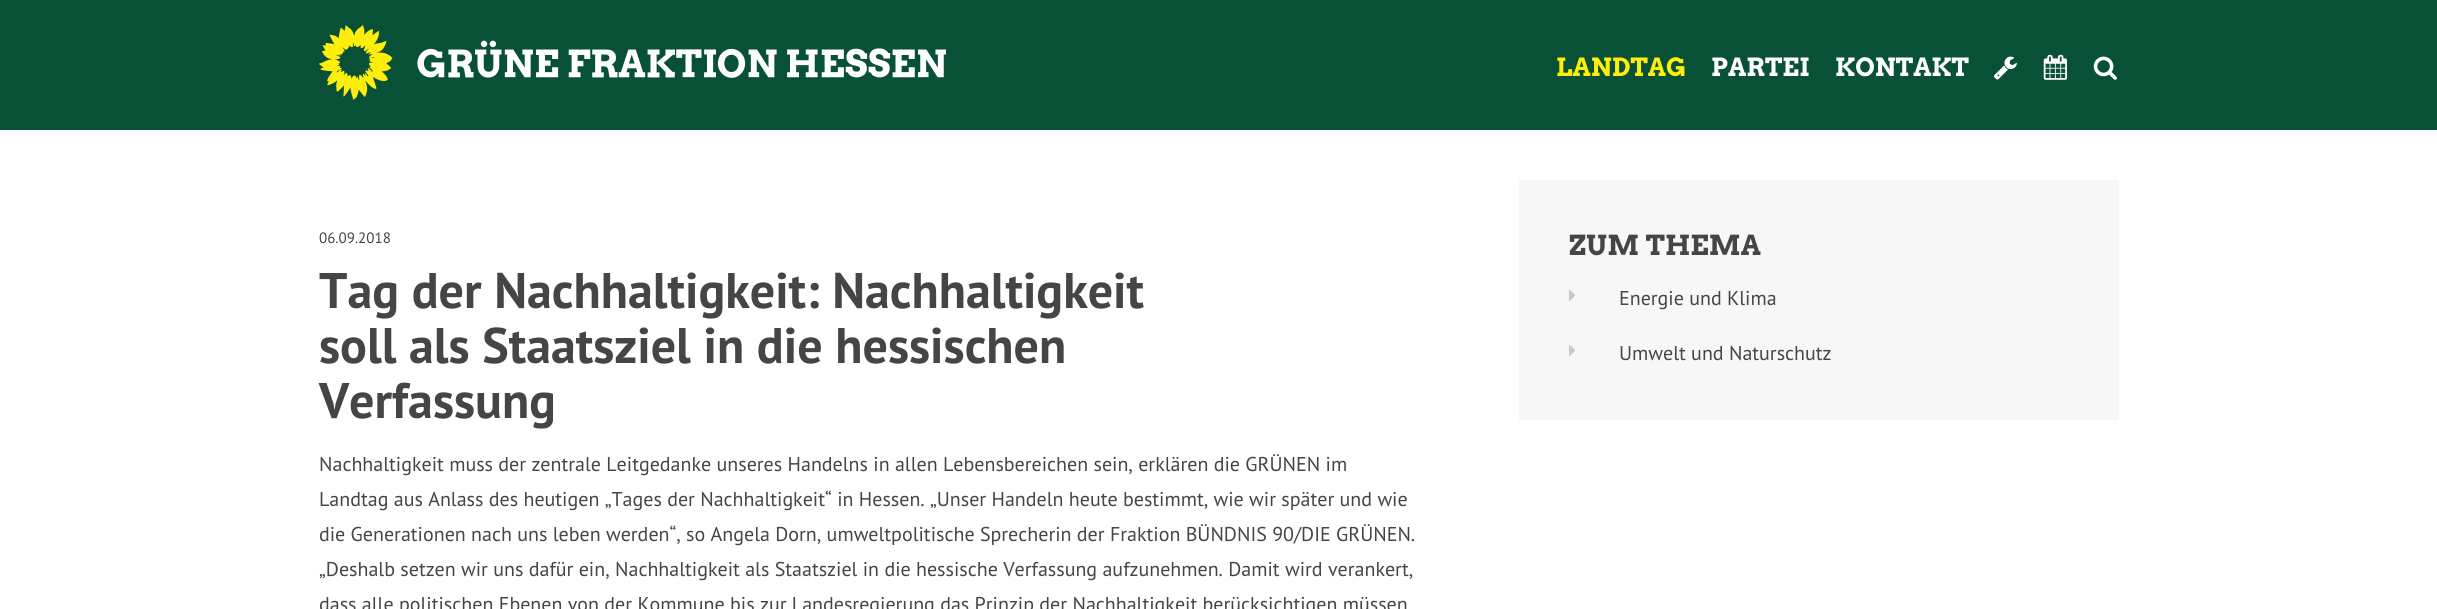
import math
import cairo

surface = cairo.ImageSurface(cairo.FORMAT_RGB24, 2437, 609)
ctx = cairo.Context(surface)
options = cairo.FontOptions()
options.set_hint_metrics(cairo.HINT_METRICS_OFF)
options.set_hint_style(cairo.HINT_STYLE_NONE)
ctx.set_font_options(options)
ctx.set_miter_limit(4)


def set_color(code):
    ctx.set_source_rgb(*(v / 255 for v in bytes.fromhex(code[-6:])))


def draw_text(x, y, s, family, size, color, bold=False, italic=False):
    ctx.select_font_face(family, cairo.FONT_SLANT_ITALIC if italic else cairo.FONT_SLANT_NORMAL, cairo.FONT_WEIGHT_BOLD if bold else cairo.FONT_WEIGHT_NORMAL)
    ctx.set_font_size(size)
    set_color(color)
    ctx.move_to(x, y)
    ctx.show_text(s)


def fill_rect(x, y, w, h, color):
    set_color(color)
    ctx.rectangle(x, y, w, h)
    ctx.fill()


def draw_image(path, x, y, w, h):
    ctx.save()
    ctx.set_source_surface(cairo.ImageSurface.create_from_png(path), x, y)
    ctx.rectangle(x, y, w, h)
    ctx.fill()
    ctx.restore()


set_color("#ffffff")
ctx.paint()
fill_rect(0, 0, 2437, 130, "#085136")
draw_image("assets/img1.png", 319, 25, 627, 75)
draw_text(1556, 76, "LANDTAG", "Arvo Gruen", 25, "#ffed0c")
draw_text(1711, 76, "PARTEI", "Arvo Gruen", 25, "#ffffff")
draw_text(1835, 76, "KONTAKT", "Arvo Gruen", 25, "#ffffff")
draw_image("assets/img2.png", 1994, 56, 23, 24)
draw_image("assets/img3.png", 2043, 54, 24, 26)
draw_image("assets/img4.png", 2093, 56, 24, 24)
draw_text(319, 243, "06.09.2018", "PT Sans", 15, "#454545")
draw_text(319, 308, "Tag der Nachhaltigkeit: Nachhaltigkeit", "PT Sans", 50, "#454545", bold=True)
draw_text(319, 363, "soll als Staatsziel in die hessischen", "PT Sans", 50, "#454545", bold=True)
draw_text(319, 418, "Verfassung", "PT Sans", 50, "#454545", bold=True)
draw_text(319, 471, "Nachhaltigkeit muss der zentrale Leitgedanke unseres Handelns in allen Lebensbereichen sein, erklären die GRÜNEN im", "PT Sans", 20, "#454545")
draw_text(319, 506, "Landtag aus Anlass des heutigen „Tages der Nachhaltigkeit“ in Hessen. „Unser Handeln heute bestimmt, wie wir später und wie", "PT Sans", 20, "#454545")
draw_text(319, 541, "die Generationen nach uns leben werden“, so Angela Dorn, umweltpolitische Sprecherin der Fraktion BÜNDNIS 90/DIE GRÜNEN.", "PT Sans", 20, "#454545")
draw_text(319, 576, "„Deshalb setzen wir uns dafür ein, Nachhaltigkeit als Staatsziel in die hessische Verfassung aufzunehmen. Damit wird verankert,", "PT Sans", 20, "#454545")
draw_text(319, 611, "dass alle politischen Ebenen von der Kommune bis zur Landesregierung das Prinzip der Nachhaltigkeit berücksichtigen müssen", "PT Sans", 20, "#454545")
fill_rect(1519, 180, 600, 240, "#f7f7f7")
draw_text(1569, 255, "ZUM THEMA", "Arvo Gruen", 27.5, "#454545")
draw_image("assets/img5.png", 1569, 289, 6, 12)
draw_text(1619, 305, "Energie und Klima", "PT Sans", 20, "#454545")
draw_image("assets/img5.png", 1569, 344, 6, 12)
draw_text(1619, 360, "Umwelt und Naturschutz", "PT Sans", 20, "#454545")
surface.write_to_png("output.png")
